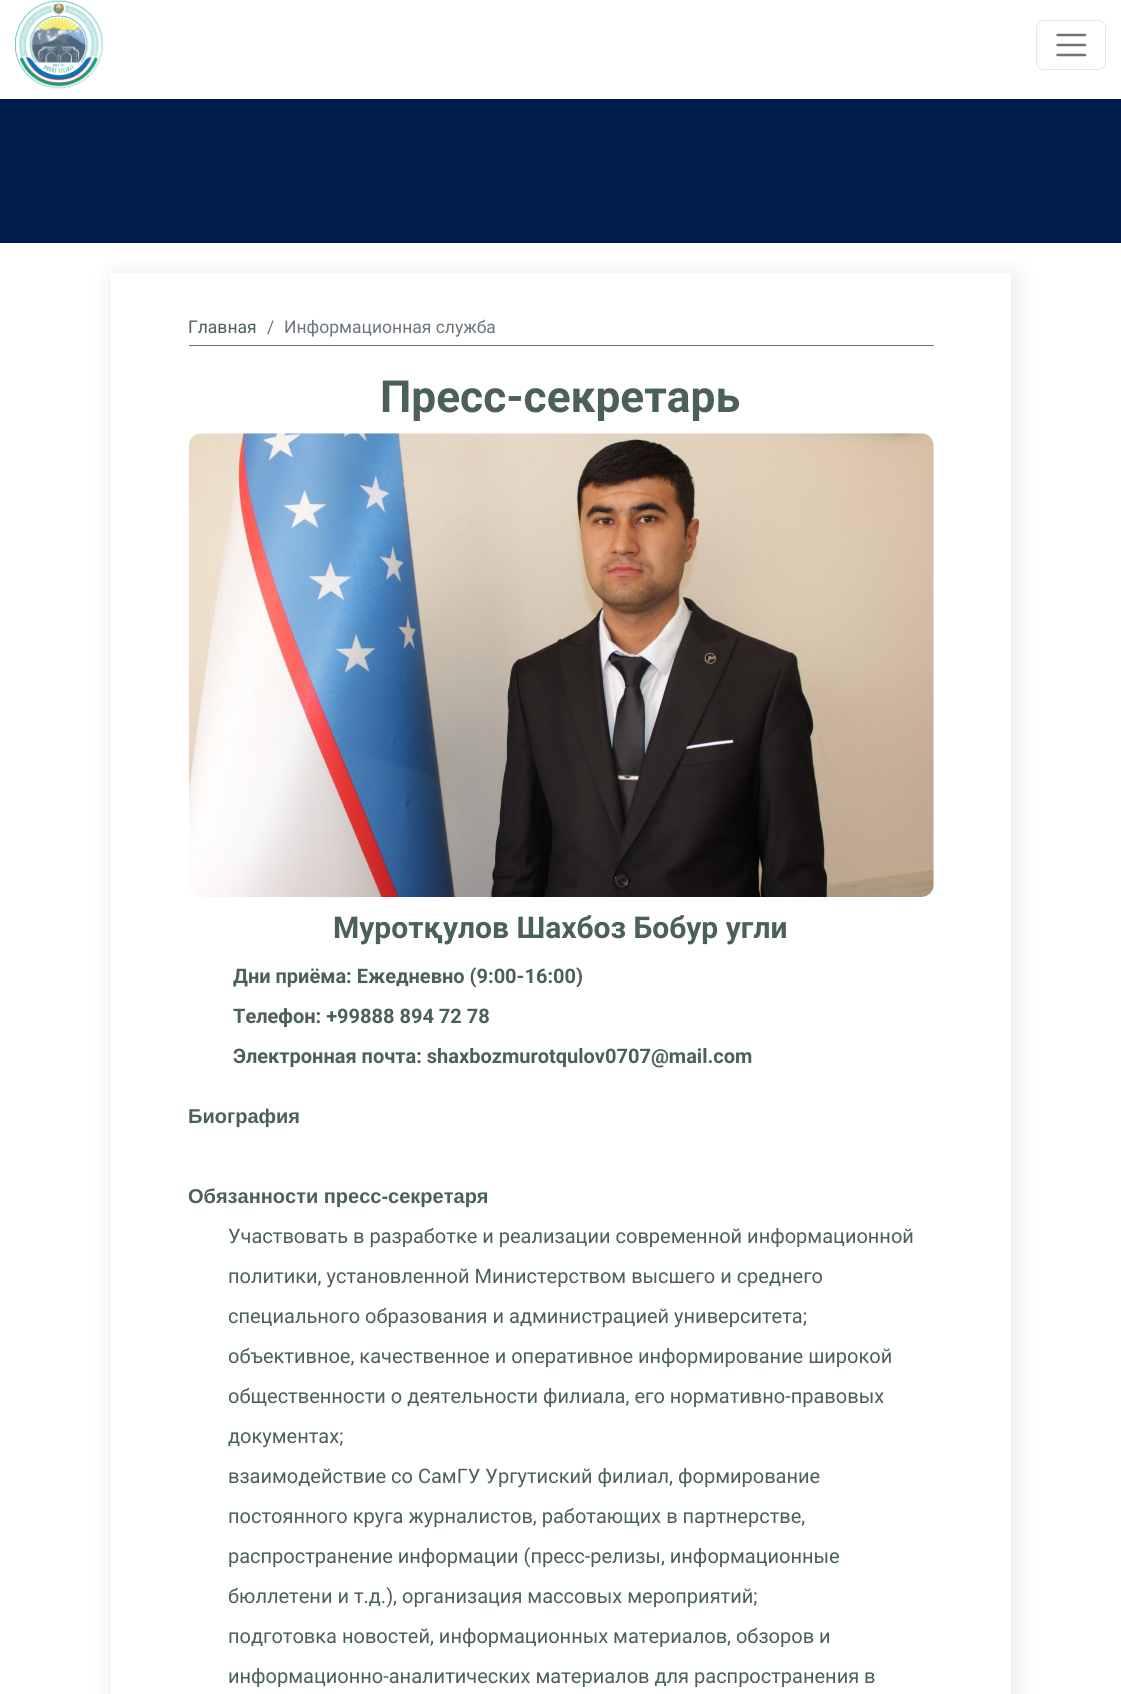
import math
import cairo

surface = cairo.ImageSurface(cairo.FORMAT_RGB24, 1121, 1694)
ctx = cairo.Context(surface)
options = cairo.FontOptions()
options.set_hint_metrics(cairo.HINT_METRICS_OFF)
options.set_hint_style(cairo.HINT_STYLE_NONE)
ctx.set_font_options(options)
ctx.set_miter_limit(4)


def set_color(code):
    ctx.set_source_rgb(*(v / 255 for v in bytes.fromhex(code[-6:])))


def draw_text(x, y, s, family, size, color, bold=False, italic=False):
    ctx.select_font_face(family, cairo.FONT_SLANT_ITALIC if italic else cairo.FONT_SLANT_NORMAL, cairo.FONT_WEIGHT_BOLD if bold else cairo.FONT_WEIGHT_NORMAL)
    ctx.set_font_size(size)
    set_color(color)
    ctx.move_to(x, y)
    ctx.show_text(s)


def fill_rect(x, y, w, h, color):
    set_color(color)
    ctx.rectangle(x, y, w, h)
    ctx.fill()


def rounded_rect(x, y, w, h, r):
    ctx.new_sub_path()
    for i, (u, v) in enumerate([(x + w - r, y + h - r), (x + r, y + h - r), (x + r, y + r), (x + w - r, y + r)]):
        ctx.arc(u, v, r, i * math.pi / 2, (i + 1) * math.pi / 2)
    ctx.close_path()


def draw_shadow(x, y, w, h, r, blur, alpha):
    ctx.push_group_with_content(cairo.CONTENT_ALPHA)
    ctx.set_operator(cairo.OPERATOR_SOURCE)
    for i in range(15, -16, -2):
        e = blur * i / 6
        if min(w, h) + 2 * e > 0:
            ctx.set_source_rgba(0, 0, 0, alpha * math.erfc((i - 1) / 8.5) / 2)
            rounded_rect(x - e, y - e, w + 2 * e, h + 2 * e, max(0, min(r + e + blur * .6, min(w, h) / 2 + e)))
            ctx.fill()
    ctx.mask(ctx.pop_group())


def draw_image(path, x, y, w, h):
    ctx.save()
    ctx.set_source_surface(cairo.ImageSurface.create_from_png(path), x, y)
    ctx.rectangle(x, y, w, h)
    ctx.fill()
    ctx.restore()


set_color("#ffffff")
ctx.paint()
draw_image("assets/img1.png", 15, 0, 88, 89)
rounded_rect(1036.5, 20.5, 69, 49, 7.5)
set_color("#e6e6e6")
ctx.set_line_width(1)
ctx.stroke()
ctx.new_path()
ctx.move_to(1057.5, 35)
ctx.line_to(1085, 35)
ctx.move_to(1057.5, 45)
ctx.line_to(1085, 45)
ctx.move_to(1057.5, 55)
ctx.line_to(1085, 55)
set_color("#737373")
ctx.set_line_width(2.5)
ctx.set_line_cap(cairo.LINE_CAP_ROUND)
ctx.stroke()
ctx.save()
ctx.set_fill_rule(cairo.FILL_RULE_EVEN_ODD)
ctx.new_path()
ctx.move_to(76, 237)
ctx.line_to(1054, 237)
ctx.line_to(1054, 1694)
ctx.line_to(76, 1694)
ctx.close_path()
ctx.move_to(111, 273)
ctx.line_to(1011, 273)
ctx.line_to(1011, 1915)
ctx.line_to(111, 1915)
ctx.close_path()
ctx.clip()
set_color("#000000")
draw_shadow(115, 276, 900, 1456, 0, 12.5, 0.1)
ctx.restore()
fill_rect(0, 99, 1121, 144, "#011d4b")
fill_rect(189, 345, 745, 1, "#707070")
draw_text(188, 333, "Главная", "Roboto", 17.5, "#4b605c")
draw_text(267, 333, "/", "Roboto", 17.5, "#6c757d")
draw_text(284, 333, "Информационная служба", "Roboto", 17.5, "#6c757d")
draw_text(380, 412, "Пресс-секретарь", "Roboto", 44.25, "#4b605c", bold=True)
draw_image("assets/img2.png", 188, 433, 746, 464)
draw_text(333, 938, "Муротқулов Шахбоз Бобур угли", "Roboto", 30, "#4b605c", bold=True)
draw_text(233, 983, "Дни приёма: Ежедневно (9:00-16:00)", "Roboto", 20, "#4b605c", bold=True)
draw_text(233, 1023, "Телефон: +99888 894 72 78", "Roboto", 20, "#4b605c", bold=True)
draw_text(233, 1063, "Электронная почта: shaxbozmurotqulov0707@mail.com", "Roboto", 20, "#4b605c", bold=True)
draw_text(188, 1123, "Биография", "Liberation Sans", 20, "#4b605c", bold=True)
draw_text(188, 1203, "Обязанности пресс-секретаря", "Liberation Sans", 20, "#4b605c", bold=True)
draw_text(228, 1243, "Участвовать в разработке и реализации современной информационной", "Roboto", 20, "#4b605c")
draw_text(228, 1283, "политики, установленной Министерством высшего и среднего", "Roboto", 20, "#4b605c")
draw_text(228, 1323, "специального образования и администрацией университета;", "Roboto", 20, "#4b605c")
draw_text(228, 1363, "объективное, качественное и оперативное информирование широкой", "Roboto", 20, "#4b605c")
draw_text(228, 1403, "общественности о деятельности филиала, его нормативно-правовых", "Roboto", 20, "#4b605c")
draw_text(228, 1443, "документах;", "Roboto", 20, "#4b605c")
draw_text(228, 1483, "взаимодействие со СамГУ Ургутиский филиал, формирование", "Roboto", 20, "#4b605c")
draw_text(228, 1523, "постоянного круга журналистов, работающих в партнерстве,", "Roboto", 20, "#4b605c")
draw_text(228, 1563, "распространение информации (пресс-релизы, информационные", "Roboto", 20, "#4b605c")
draw_text(228, 1603, "бюллетени и т.д.), организация массовых мероприятий;", "Roboto", 20, "#4b605c")
draw_text(228, 1643, "подготовка новостей, информационных материалов, обзоров и", "Roboto", 20, "#4b605c")
draw_text(228, 1683, "информационно-аналитических материалов для распространения в", "Roboto", 20, "#4b605c")
surface.write_to_png("output.png")
